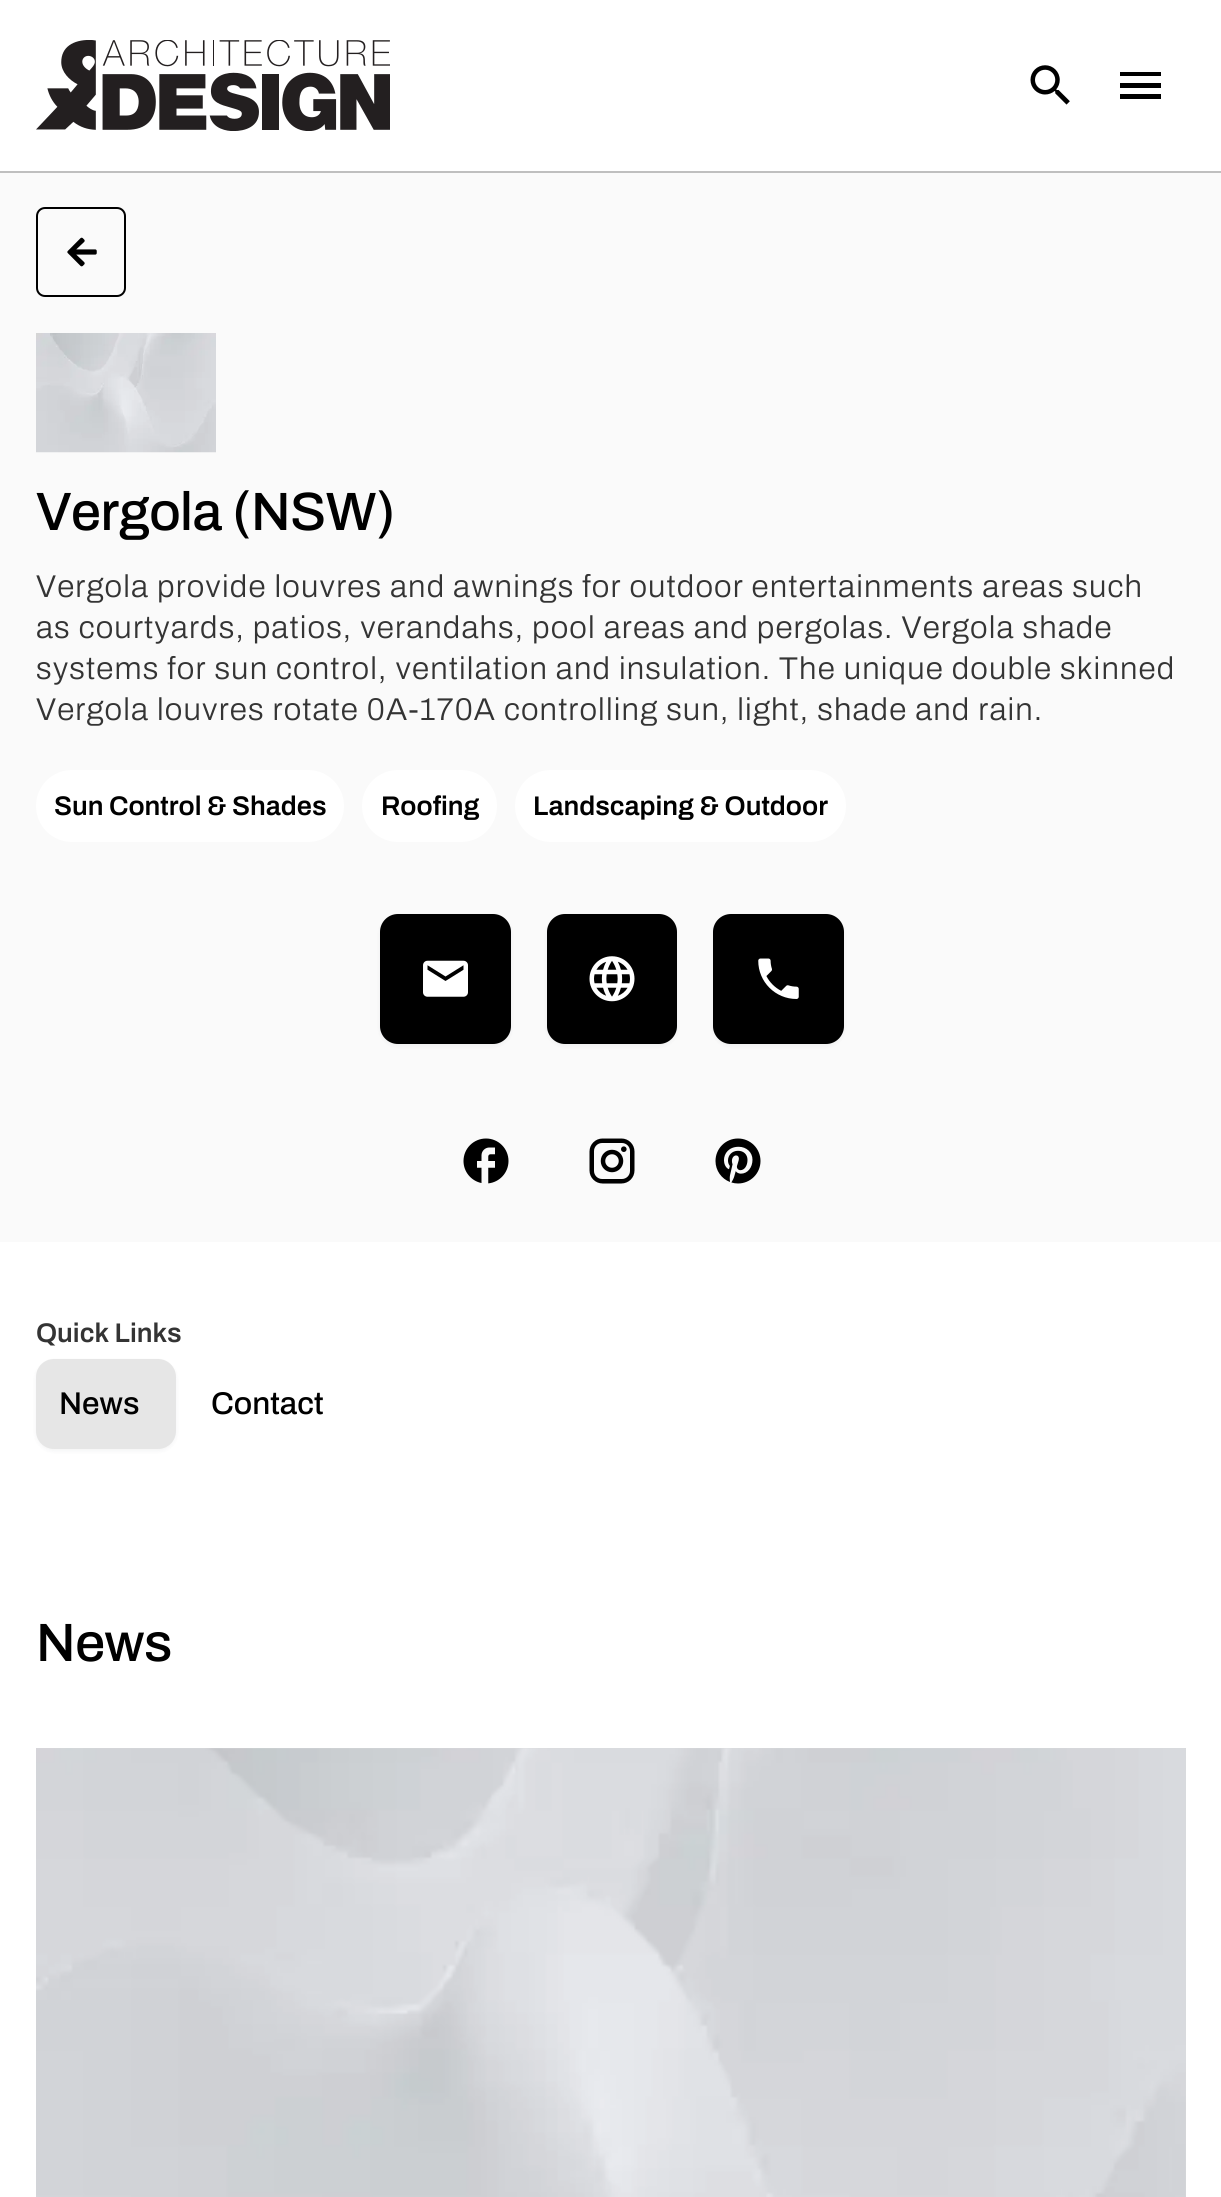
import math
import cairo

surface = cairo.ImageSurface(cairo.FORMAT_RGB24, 1221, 2197)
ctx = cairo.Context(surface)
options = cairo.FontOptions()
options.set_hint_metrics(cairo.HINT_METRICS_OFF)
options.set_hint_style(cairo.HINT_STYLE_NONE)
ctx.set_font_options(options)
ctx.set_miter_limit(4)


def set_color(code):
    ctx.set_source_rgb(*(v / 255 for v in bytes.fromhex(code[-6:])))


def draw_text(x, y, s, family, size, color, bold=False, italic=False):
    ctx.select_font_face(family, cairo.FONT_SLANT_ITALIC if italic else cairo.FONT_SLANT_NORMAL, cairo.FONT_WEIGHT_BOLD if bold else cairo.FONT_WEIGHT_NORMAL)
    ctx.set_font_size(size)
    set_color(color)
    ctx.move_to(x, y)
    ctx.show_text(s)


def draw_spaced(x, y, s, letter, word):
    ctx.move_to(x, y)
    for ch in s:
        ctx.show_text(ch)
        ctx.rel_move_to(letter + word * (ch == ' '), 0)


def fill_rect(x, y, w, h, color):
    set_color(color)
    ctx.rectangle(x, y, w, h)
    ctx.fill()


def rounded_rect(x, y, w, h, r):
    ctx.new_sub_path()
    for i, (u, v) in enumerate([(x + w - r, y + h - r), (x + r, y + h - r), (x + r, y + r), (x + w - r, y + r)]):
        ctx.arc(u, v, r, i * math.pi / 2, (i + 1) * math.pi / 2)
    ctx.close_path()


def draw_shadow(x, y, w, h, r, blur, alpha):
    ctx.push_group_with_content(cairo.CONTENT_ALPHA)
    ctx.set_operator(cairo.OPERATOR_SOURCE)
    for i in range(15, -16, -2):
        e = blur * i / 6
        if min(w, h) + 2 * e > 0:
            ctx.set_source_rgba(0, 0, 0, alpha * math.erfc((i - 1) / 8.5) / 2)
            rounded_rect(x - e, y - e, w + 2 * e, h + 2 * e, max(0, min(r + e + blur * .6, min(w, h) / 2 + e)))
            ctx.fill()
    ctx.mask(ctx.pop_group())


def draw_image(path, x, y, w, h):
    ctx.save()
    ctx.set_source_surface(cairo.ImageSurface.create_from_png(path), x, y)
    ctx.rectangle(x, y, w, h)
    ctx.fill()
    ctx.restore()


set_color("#ffffff")
ctx.paint()
fill_rect(0, 171, 1221, 2, "#bfbfbf")
draw_image("assets/img1.png", 36, 40, 354, 91)
draw_image("assets/img2.png", 1030, 65, 40, 40)
set_color("#000000")
ctx.new_path()
ctx.move_to(1120, 99)
ctx.line_to(1161, 99)
ctx.line_to(1161, 94)
ctx.line_to(1120, 94)
ctx.close_path()
ctx.move_to(1120, 88)
ctx.line_to(1161, 88)
ctx.line_to(1161, 83)
ctx.line_to(1120, 83)
ctx.close_path()
ctx.move_to(1120, 72)
ctx.line_to(1120, 76)
ctx.line_to(1161, 76)
ctx.line_to(1161, 72)
ctx.close_path()
ctx.fill()
fill_rect(0, 173, 1221, 1069, "#fafafa")
rounded_rect(37, 208, 88, 88, 8)
set_color("#000000")
ctx.stroke()
draw_image("assets/img3.png", 67, 237, 30, 30)
draw_image("assets/img4.png", 36, 333, 180, 120)
ctx.select_font_face("Archivo Medium")
ctx.set_font_size(54)
draw_spaced(36, 530, "Vergola (NSW)", -0.5, 0)
ctx.select_font_face("Archivo Light")
ctx.set_font_size(31.5)
set_color("#343434")
draw_spaced(36, 597, "Vergola provide louvres and awnings for outdoor entertainments areas such", 1.12, 0)
draw_spaced(36, 638, "as courtyards, patios, verandahs, pool areas and pergolas. Vergola shade", 1.12, 0)
draw_spaced(36, 679, "systems for sun control, ventilation and insulation. The unique double skinned", 1.12, 0)
draw_spaced(36, 720, "Vergola louvres rotate 0A-170A controlling sun, light, shade and rain.", 1.12, 0)
set_color("#ffffff")
rounded_rect(36, 770, 308, 72, 36)
ctx.fill()
draw_text(54, 815, "Sun Control & Shades", "Archivo SemiBold", 27, "#000000")
set_color("#ffffff")
rounded_rect(362, 770, 135, 72, 36)
ctx.fill()
draw_text(381, 815, "Roofing", "Archivo SemiBold", 27, "#000000")
set_color("#ffffff")
rounded_rect(515, 770, 331, 72, 36)
ctx.fill()
draw_text(533, 815, "Landscaping & Outdoor", "Archivo SemiBold", 27, "#000000")
set_color("#101828")
draw_shadow(380, 916, 131, 130, 18, 2, 0.05)
set_color("#000000")
rounded_rect(381, 915, 129, 128, 17)
ctx.fill_preserve()
ctx.stroke()
draw_image("assets/img5.png", 423, 960, 45, 37)
set_color("#101828")
draw_shadow(547, 916, 130, 130, 18, 2, 0.05)
set_color("#000000")
rounded_rect(548, 915, 128, 128, 17)
ctx.fill_preserve()
ctx.stroke()
draw_image("assets/img6.png", 589, 956, 46, 46)
set_color("#101828")
draw_shadow(713, 916, 131, 130, 18, 2, 0.05)
set_color("#000000")
rounded_rect(714, 915, 129, 128, 17)
ctx.fill_preserve()
ctx.stroke()
draw_image("assets/img7.png", 758, 958, 41, 41)
draw_image("assets/img8.png", 463, 1138, 46, 46)
draw_image("assets/img9.png", 589, 1138, 46, 46)
draw_image("assets/img10.png", 715, 1138, 46, 46)
draw_text(36, 1342, "Quick Links", "Archivo SemiBold", 27, "#343434")
set_color("#101828")
draw_shadow(36, 1361, 140, 90, 18, 2, 0.05)
set_color("#e6e6e6")
rounded_rect(36, 1359, 140, 90, 18)
ctx.fill()
draw_text(59, 1414, "News", "Archivo Medium", 31.5, "#000000")
draw_text(211, 1414, "Contact", "Archivo Medium", 31.5, "#000000")
ctx.set_font_size(54)
draw_spaced(36, 1661, "News", -0.5, 0)
fill_rect(36, 1748, 1150, 449, "#d9d9d9")
draw_image("assets/img11.png", 36, 1748, 1150, 449)
surface.write_to_png("output.png")
